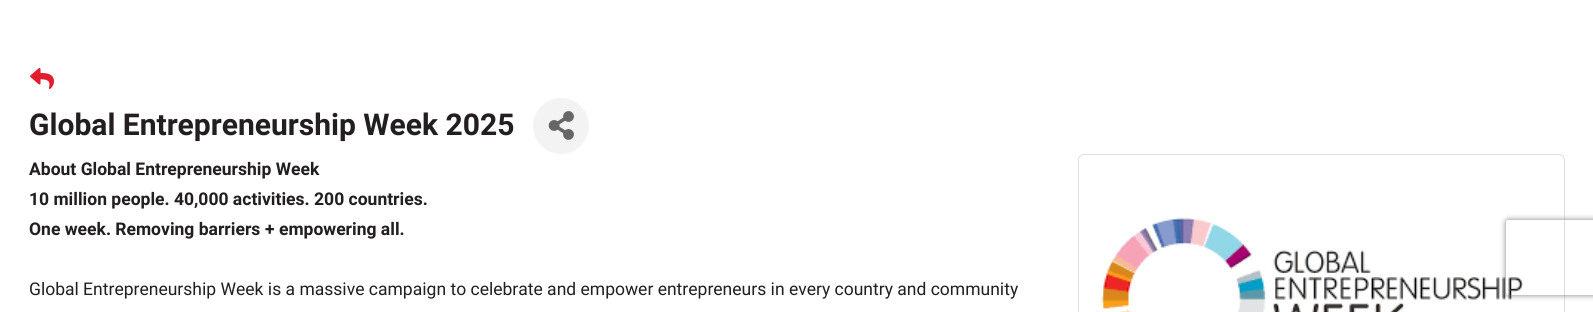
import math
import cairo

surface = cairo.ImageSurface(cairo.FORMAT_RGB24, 1593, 312)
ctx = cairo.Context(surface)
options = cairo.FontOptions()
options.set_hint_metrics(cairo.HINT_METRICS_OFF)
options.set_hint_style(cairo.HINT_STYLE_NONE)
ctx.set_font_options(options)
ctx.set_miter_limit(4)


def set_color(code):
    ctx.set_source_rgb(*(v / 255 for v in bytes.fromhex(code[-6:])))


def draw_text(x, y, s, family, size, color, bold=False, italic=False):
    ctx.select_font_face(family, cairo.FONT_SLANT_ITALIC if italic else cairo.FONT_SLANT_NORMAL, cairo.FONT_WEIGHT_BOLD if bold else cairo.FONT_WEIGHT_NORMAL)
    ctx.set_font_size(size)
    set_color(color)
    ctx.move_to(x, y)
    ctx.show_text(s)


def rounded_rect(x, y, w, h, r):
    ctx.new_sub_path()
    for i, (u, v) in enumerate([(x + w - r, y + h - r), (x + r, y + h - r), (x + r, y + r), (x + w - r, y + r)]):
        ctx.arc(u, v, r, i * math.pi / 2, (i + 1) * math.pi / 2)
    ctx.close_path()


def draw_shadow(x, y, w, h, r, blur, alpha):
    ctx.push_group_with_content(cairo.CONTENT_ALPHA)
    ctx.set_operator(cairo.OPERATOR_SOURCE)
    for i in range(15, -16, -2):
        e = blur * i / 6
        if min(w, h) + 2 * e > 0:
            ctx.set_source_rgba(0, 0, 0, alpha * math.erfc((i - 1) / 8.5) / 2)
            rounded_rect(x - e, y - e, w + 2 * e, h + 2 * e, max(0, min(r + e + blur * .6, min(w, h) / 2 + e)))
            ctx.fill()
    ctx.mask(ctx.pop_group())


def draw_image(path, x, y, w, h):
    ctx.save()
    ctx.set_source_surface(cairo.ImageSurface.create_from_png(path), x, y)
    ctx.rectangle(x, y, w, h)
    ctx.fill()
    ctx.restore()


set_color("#ffffff")
ctx.paint()
draw_image("assets/img1.png", 30, 68, 24, 21)
draw_text(29, 135, "Global Entrepreneurship Week 2025", "Heebo", 30, "#231f20", bold=True)
set_color("#f3f3f3")
ctx.new_path()
ctx.arc(561, 126, 28, 0, 2 * math.pi)
ctx.fill()
draw_image("assets/img2.png", 548, 111, 26, 29)
draw_text(29, 175, "About Global Entrepreneurship Week", "Heebo", 17.5, "#231f20", bold=True)
draw_text(29, 205, "10 million people. 40,000 activities. 200 countries.", "Heebo", 17.5, "#231f20", bold=True)
draw_text(29, 235, "One week. Removing barriers + empowering all.", "Heebo", 17.5, "#231f20", bold=True)
draw_text(29, 295, "Global Entrepreneurship Week is a massive campaign to celebrate and empower entrepreneurs in every country and community", "Heebo", 17.5, "#231f20")
rounded_rect(1078.5, 154.5, 486, 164, 5.5)
set_color("#dfdfdf")
ctx.set_line_width(1)
ctx.stroke()
draw_image("assets/img3.png", 1101, 217, 423, 95)
ctx.save()
ctx.set_fill_rule(cairo.FILL_RULE_EVEN_ODD)
ctx.new_path()
ctx.move_to(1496, 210)
ctx.line_to(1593, 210)
ctx.line_to(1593, 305)
ctx.line_to(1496, 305)
ctx.close_path()
ctx.move_to(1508.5, 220)
ctx.line_to(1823.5, 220)
ctx.curve_to(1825, 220, 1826, 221, 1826, 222.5)
ctx.line_to(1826, 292.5)
ctx.curve_to(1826, 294, 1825, 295, 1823.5, 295)
ctx.line_to(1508.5, 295)
ctx.curve_to(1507, 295, 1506, 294, 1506, 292.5)
ctx.line_to(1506, 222.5)
ctx.curve_to(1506, 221, 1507, 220, 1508.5, 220)
ctx.close_path()
ctx.clip()
set_color("#808080")
draw_shadow(1506, 220, 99, 75, 2.5, 3, 1)
ctx.restore()
surface.write_to_png("output.png")
